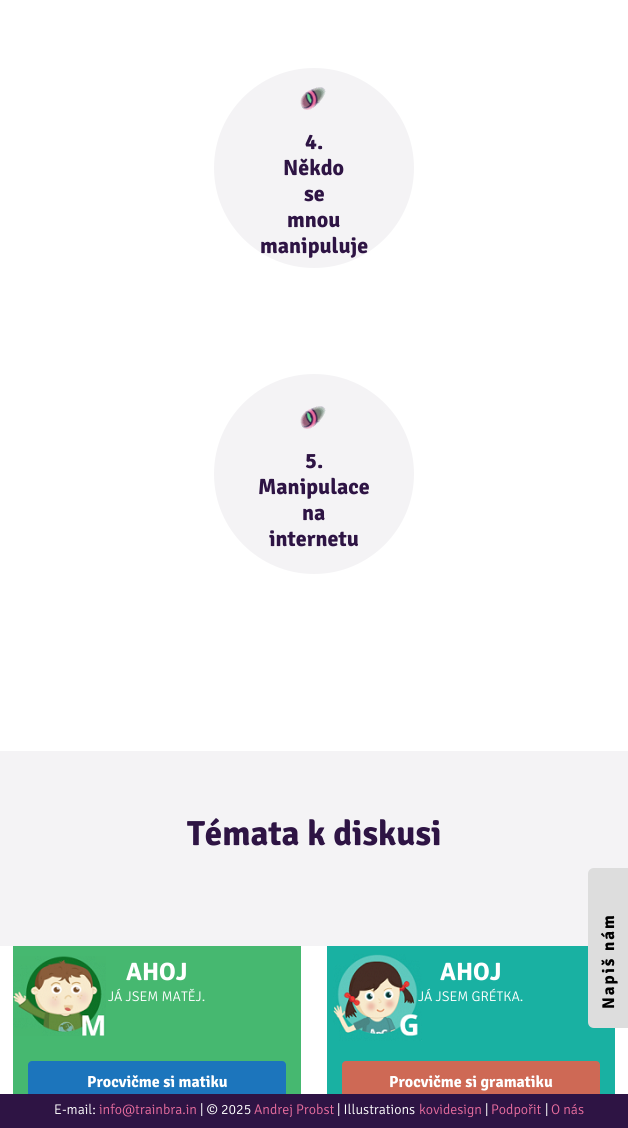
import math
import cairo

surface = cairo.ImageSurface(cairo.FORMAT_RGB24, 628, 1128)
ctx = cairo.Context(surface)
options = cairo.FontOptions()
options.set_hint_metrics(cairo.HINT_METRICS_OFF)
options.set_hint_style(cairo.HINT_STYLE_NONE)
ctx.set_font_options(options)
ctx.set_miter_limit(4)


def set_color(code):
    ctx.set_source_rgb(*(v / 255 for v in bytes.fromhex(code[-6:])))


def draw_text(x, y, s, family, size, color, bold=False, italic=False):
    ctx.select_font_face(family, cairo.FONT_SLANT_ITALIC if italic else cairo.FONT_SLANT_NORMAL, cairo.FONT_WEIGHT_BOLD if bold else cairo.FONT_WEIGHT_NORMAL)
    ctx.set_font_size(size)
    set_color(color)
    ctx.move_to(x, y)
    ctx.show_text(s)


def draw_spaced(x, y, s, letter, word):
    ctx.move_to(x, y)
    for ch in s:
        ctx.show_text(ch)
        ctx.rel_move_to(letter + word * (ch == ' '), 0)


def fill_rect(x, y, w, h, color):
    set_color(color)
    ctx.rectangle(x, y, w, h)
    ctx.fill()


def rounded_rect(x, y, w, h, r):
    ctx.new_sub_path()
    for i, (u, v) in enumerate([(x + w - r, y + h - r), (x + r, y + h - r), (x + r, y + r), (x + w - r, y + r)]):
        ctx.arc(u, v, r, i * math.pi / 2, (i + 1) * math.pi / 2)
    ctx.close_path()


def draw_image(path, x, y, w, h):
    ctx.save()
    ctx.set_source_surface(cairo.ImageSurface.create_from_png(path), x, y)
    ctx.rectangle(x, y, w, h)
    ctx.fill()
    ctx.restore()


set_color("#ffffff")
ctx.paint()
set_color("#f4f3f5")
ctx.arc(314, 168, 100, 0, 2 * math.pi)
ctx.fill()
draw_image("assets/img1.png", 300, 87, 26, 23)
draw_text(305, 149, "4.", "Signika", 22, "#2e1444", bold=True)
draw_text(283, 175, "Někdo", "Signika", 22, "#2e1444", bold=True)
draw_text(304, 201, "se", "Signika", 22, "#2e1444", bold=True)
draw_text(287, 227, "mnou", "Signika", 22, "#2e1444", bold=True)
draw_text(260, 253, "manipuluje", "Signika", 22, "#2e1444", bold=True)
set_color("#f4f3f5")
ctx.new_path()
ctx.arc(314, 474, 100, 0, 2 * math.pi)
ctx.fill()
draw_image("assets/img1.png", 300, 406, 26, 23)
draw_text(305, 468, "5.", "Signika", 22, "#2e1444", bold=True)
draw_text(258, 494, "Manipulace", "Signika", 22, "#2e1444", bold=True)
draw_text(302, 520, "na", "Signika", 22, "#2e1444", bold=True)
draw_text(269, 546, "internetu", "Signika", 22, "#2e1444", bold=True)
fill_rect(0, 751, 628, 195, "#f4f3f5")
draw_text(187, 845, "Témata k diskusi", "Signika", 35, "#2e1444", bold=True)
fill_rect(13, 946, 288, 148, "#46b870")
draw_image("assets/img2.png", 13, 956, 93, 80)
draw_text(126, 980, "AHOJ", "Signika", 25, "#ffffff", bold=True)
draw_text(108, 1001, "JÁ JSEM MATĚJ.", "Signika Light", 14, "#ffffff")
set_color("#1c75bc")
rounded_rect(28, 1061, 258, 39, 4)
ctx.fill()
draw_text(87, 1087, "Procvičme si matiku", "Signika", 16, "#ffffff", bold=True)
fill_rect(327, 946, 288, 148, "#19b1a2")
draw_image("assets/img3.png", 333, 954, 89, 87)
draw_text(440, 980, "AHOJ", "Signika", 25, "#ffffff", bold=True)
draw_text(418, 1001, "JÁ JSEM GRÉTKA.", "Signika Light", 14, "#ffffff")
set_color("#ce6955")
rounded_rect(342, 1061, 258, 39, 4)
ctx.fill()
draw_text(389, 1087, "Procvičme si gramatiku", "Signika", 16, "#ffffff", bold=True)
set_color("#dddddd")
ctx.new_path()
ctx.move_to(594, 868)
ctx.line_to(628, 868)
ctx.line_to(628, 1028)
ctx.line_to(594, 1028)
ctx.curve_to(590.5, 1028, 588, 1025.5, 588, 1022)
ctx.line_to(588, 874)
ctx.curve_to(588, 870.5, 590.5, 868, 594, 868)
ctx.close_path()
ctx.fill()
ctx.set_font_size(17)
set_color("#000000")
ctx.save()
ctx.translate(614, 1009)
ctx.rotate(-90 * math.pi / 180)
draw_spaced(0, 0, "Napiš nám", 2, 0)
ctx.restore()
fill_rect(0, 1094, 628, 34, "#2e1444")
draw_text(54, 1114, "E-mail:", "Signika Light", 14, "#ffffff")
draw_text(99, 1114, "info@trainbra.in", "Signika Light", 14, "#e86d9e")
draw_text(200, 1114, "| © 2025", "Signika Light", 14, "#ffffff")
draw_text(254, 1114, "Andrej Probst", "Signika Light", 14, "#e86d9e")
draw_text(337, 1114, "| Illustrations", "Signika Light", 14, "#ffffff")
draw_text(419, 1114, "kovidesign", "Signika Light", 14, "#e86d9e")
draw_text(485, 1114, "|", "Signika Light", 14, "#ffffff")
draw_text(491, 1114, "Podpořit", "Signika Light", 14, "#e86d9e")
draw_text(545, 1114, "|", "Signika Light", 14, "#ffffff")
draw_text(551, 1114, "O nás", "Signika Light", 14, "#e86d9e")
surface.write_to_png("output.png")
